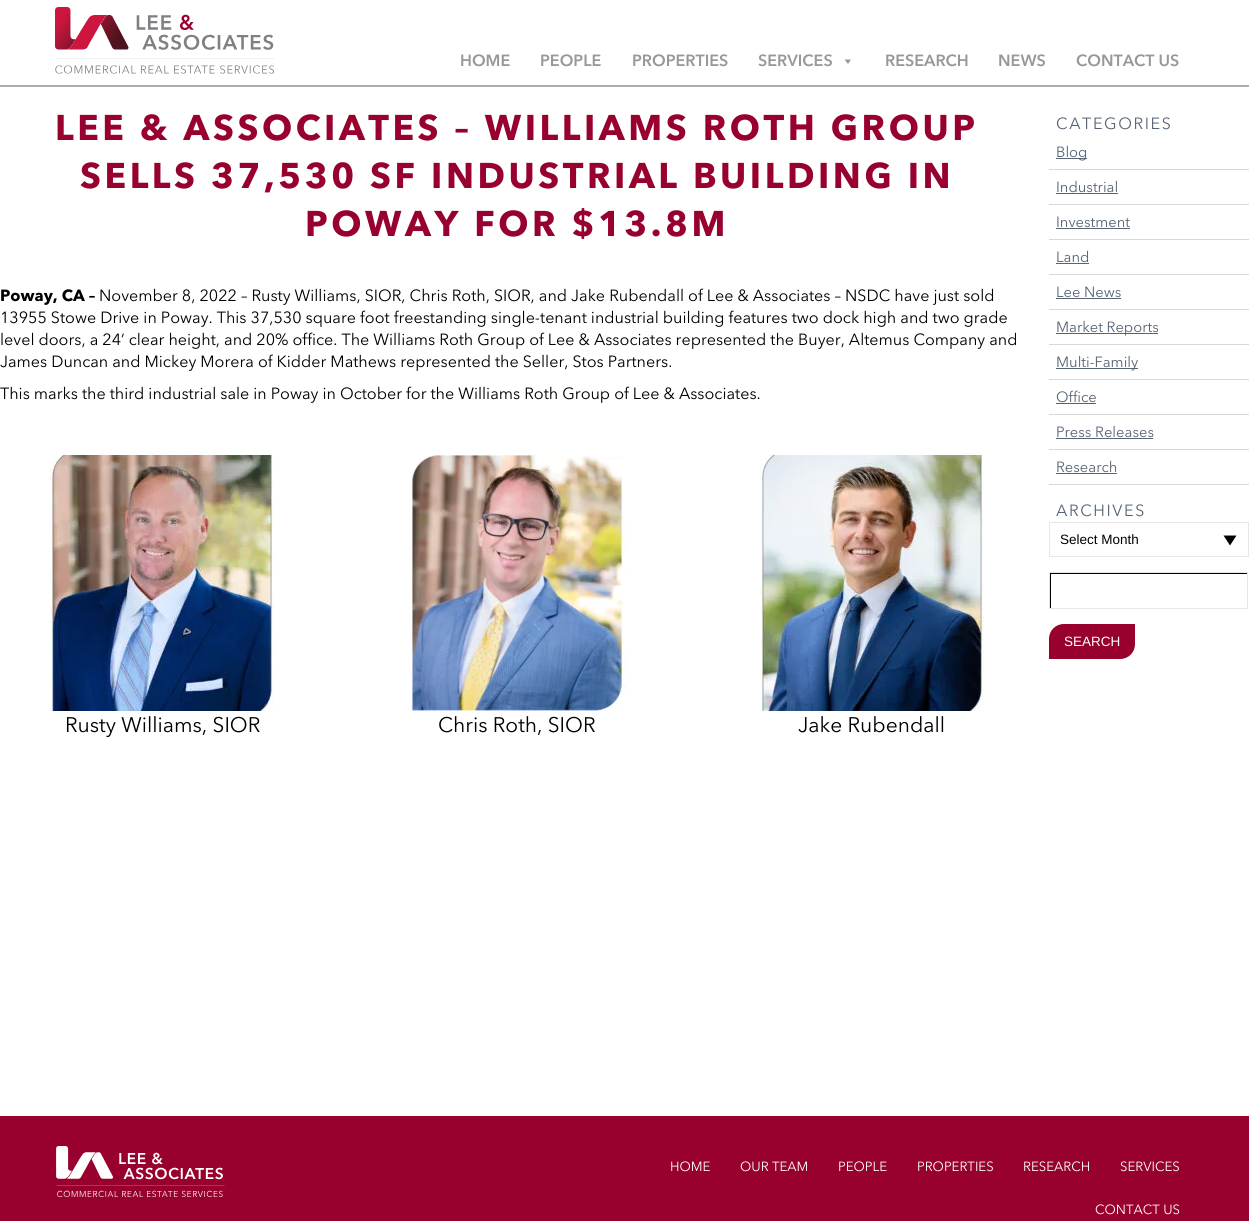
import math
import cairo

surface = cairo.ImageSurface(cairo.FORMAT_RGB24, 1249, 1221)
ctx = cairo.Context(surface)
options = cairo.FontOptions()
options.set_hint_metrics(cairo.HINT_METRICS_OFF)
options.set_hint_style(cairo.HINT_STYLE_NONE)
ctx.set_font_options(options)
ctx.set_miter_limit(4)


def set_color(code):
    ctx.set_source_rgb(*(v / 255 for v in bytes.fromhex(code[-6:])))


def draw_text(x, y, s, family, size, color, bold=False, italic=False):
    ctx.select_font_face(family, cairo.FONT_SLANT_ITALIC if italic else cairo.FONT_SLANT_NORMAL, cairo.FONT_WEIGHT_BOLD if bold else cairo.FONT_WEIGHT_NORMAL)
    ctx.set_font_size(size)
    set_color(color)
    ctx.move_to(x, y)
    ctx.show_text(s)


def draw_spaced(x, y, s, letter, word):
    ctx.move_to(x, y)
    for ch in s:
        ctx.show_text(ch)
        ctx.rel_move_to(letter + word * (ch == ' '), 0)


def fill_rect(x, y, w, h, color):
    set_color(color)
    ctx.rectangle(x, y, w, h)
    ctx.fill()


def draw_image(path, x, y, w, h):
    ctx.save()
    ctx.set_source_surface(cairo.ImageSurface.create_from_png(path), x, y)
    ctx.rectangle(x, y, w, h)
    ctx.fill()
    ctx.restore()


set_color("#ffffff")
ctx.paint()
fill_rect(0, 85, 1249, 2, "#adadad")
draw_image("assets/img1.png", 55, 7, 220, 67)
draw_text(460, 66, "HOME", "Avenir Next SemiBold", 16.13, "#989898")
draw_text(540, 66, "PEOPLE", "Avenir Next SemiBold", 16.13, "#989898")
draw_text(632, 66, "PROPERTIES", "Avenir Next SemiBold", 16.13, "#989898")
draw_text(758, 66, "SERVICES", "Avenir Next SemiBold", 16.13, "#989898")
ctx.new_path()
ctx.move_to(851, 59.5)
ctx.line_to(848, 64)
ctx.line_to(844.5, 59.5)
ctx.close_path()
ctx.fill()
draw_text(885, 66, "RESEARCH", "Avenir Next SemiBold", 16.13, "#989898")
draw_text(998, 66, "NEWS", "Avenir Next SemiBold", 16.13, "#989898")
draw_text(1076, 66, "CONTACT US", "Avenir Next SemiBold", 16.13, "#989898")
ctx.select_font_face("Avenir Next", cairo.FONT_SLANT_NORMAL, cairo.FONT_WEIGHT_BOLD)
ctx.set_font_size(35.5)
set_color("#98002e")
draw_spaced(55, 140, "LEE & ASSOCIATES – WILLIAMS ROTH GROUP", 3.55, 0)
draw_spaced(80, 188, "SELLS 37,530 SF INDUSTRIAL BUILDING IN", 3.55, 0)
draw_spaced(305, 236, "POWAY FOR $13.8M", 3.55, 0)
draw_text(0, 301, "Poway, CA –", "Avenir Next", 16.13, "#000000", bold=True)
draw_text(99, 301, "November 8, 2022 – Rusty Williams, SIOR, Chris Roth, SIOR, and Jake Rubendall of Lee & Associates – NSDC have just sold", "Avenir Next", 16.13, "#000000")
draw_text(0, 323, "13955 Stowe Drive in Poway. This 37,530 square foot freestanding single-tenant industrial building features two dock high and two grade", "Avenir Next", 16.13, "#000000")
draw_text(0, 345, "level doors, a 24’ clear height, and 20% office. The Williams Roth Group of Lee & Associates represented the Buyer, Altemus Company and", "Avenir Next", 16.13, "#000000")
draw_text(0, 367, "James Duncan and Mickey Morera of Kidder Mathews represented the Seller, Stos Partners.", "Avenir Next", 16.13, "#000000")
draw_text(0, 399, "This marks the third industrial sale in Poway in October for the Williams Roth Group of Lee & Associates.", "Avenir Next", 16.13, "#000000")
draw_image("assets/img2.png", 50, 455, 224, 256)
draw_text(65, 732, "Rusty Williams, SIOR", "Avenir Next", 21, "#000000")
draw_image("assets/img3.png", 409, 455, 218, 256)
draw_text(438, 732, "Chris Roth, SIOR", "Avenir Next", 21, "#000000")
draw_image("assets/img4.png", 760, 455, 224, 256)
draw_text(798, 732, "Jake Rubendall", "Avenir Next", 21, "#000000")
ctx.set_font_size(16.13)
set_color("#576474")
draw_spaced(1056, 129, "CATEGORIES", 1.6, 0)
fill_rect(1049, 169, 200, 1, "#d8d8d8")
fill_rect(1056, 158, 31, 1, "#576474")
draw_text(1056, 157, "Blog", "Avenir Next", 14.75, "#576474")
fill_rect(1049, 204, 200, 1, "#d8d8d8")
draw_text(1056, 192, "Industrial", "Avenir Next", 14.75, "#576474")
fill_rect(1056, 193, 62, 1, "#576474")
fill_rect(1049, 239, 200, 1, "#d8d8d8")
draw_text(1056, 227, "Investment", "Avenir Next", 14.75, "#576474")
fill_rect(1056, 228, 74, 1, "#576474")
fill_rect(1049, 274, 200, 1, "#d8d8d8")
draw_text(1056, 262, "Land", "Avenir Next", 14.75, "#576474")
fill_rect(1056, 263, 33, 1, "#576474")
fill_rect(1049, 309, 200, 1, "#d8d8d8")
draw_text(1056, 297, "Lee News", "Avenir Next", 14.75, "#576474")
fill_rect(1056, 298, 65, 1, "#576474")
fill_rect(1049, 344, 200, 1, "#d8d8d8")
fill_rect(1056, 333, 102, 1, "#576474")
draw_text(1056, 332, "Market Reports", "Avenir Next", 14.75, "#576474")
fill_rect(1049, 379, 200, 1, "#d8d8d8")
fill_rect(1056, 368, 82, 1, "#576474")
draw_text(1056, 367, "Multi-Family", "Avenir Next", 14.75, "#576474")
fill_rect(1049, 414, 200, 1, "#d8d8d8")
draw_text(1056, 402, "Office", "Avenir Next", 14.75, "#576474")
fill_rect(1056, 403, 40, 1, "#576474")
fill_rect(1049, 449, 200, 1, "#d8d8d8")
draw_text(1056, 437, "Press Releases", "Avenir Next", 14.75, "#576474")
fill_rect(1056, 438, 97, 1, "#576474")
fill_rect(1049, 484, 200, 1, "#d8d8d8")
draw_text(1056, 472, "Research", "Avenir Next", 14.75, "#576474")
fill_rect(1056, 473, 61, 1, "#576474")
ctx.set_font_size(16.13)
draw_spaced(1056, 516, "ARCHIVES", 1.6, 0)
set_color("#000000")
ctx.set_fill_rule(cairo.FILL_RULE_EVEN_ODD)
ctx.new_path()
ctx.move_to(1230, 545.5)
ctx.line_to(1223.5, 535.5)
ctx.line_to(1236.5, 535.5)
ctx.close_path()
ctx.fill()
ctx.rectangle(1049.5, 522.5, 199, 34)
set_color("#e7e7e7")
ctx.set_line_width(1)
ctx.stroke()
draw_text(1060, 544, "Select Month", "Liberation Sans", 13.5, "#000000")
ctx.save()
ctx.set_fill_rule(cairo.FILL_RULE_WINDING)
ctx.rectangle(1050, 573, 197, 35)
ctx.clip()
ctx.set_fill_rule(cairo.FILL_RULE_EVEN_ODD)
ctx.new_path()
ctx.move_to(951, 474)
ctx.line_to(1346, 474)
ctx.line_to(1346, 707)
ctx.line_to(951, 707)
ctx.close_path()
ctx.move_to(1051, 574)
ctx.line_to(1248, 574)
ctx.line_to(1248, 609)
ctx.line_to(1051, 609)
ctx.close_path()
ctx.fill()
ctx.restore()
ctx.rectangle(1049.5, 572.5, 198, 36)
set_color("#e7e7e7")
ctx.stroke()
set_color("#98002e")
ctx.new_path()
ctx.move_to(1064, 624)
ctx.line_to(1135, 624)
ctx.line_to(1135, 644)
ctx.curve_to(1135, 652.5, 1128.5, 659, 1120, 659)
ctx.line_to(1049, 659)
ctx.line_to(1049, 639)
ctx.curve_to(1049, 630.5, 1055.5, 624, 1064, 624)
ctx.close_path()
ctx.fill()
draw_text(1064, 646, "SEARCH", "Liberation Sans", 13.5, "#ffffff")
fill_rect(0, 1116, 1249, 105, "#98002e")
draw_image("assets/img5.png", 56, 1146, 169, 51)
draw_text(670, 1171, "HOME", "Avenir Next", 13.25, "#ffffff")
draw_text(740, 1171, "OUR TEAM", "Avenir Next", 13.25, "#ffffff")
draw_text(838, 1171, "PEOPLE", "Avenir Next", 13.25, "#ffffff")
draw_text(917, 1171, "PROPERTIES", "Avenir Next", 13.25, "#ffffff")
draw_text(1023, 1171, "RESEARCH", "Avenir Next", 13.25, "#ffffff")
draw_text(1120, 1171, "SERVICES", "Avenir Next", 13.25, "#ffffff")
draw_text(1095, 1214, "CONTACT US", "Avenir Next", 13.25, "#ffffff")
surface.write_to_png("output.png")
